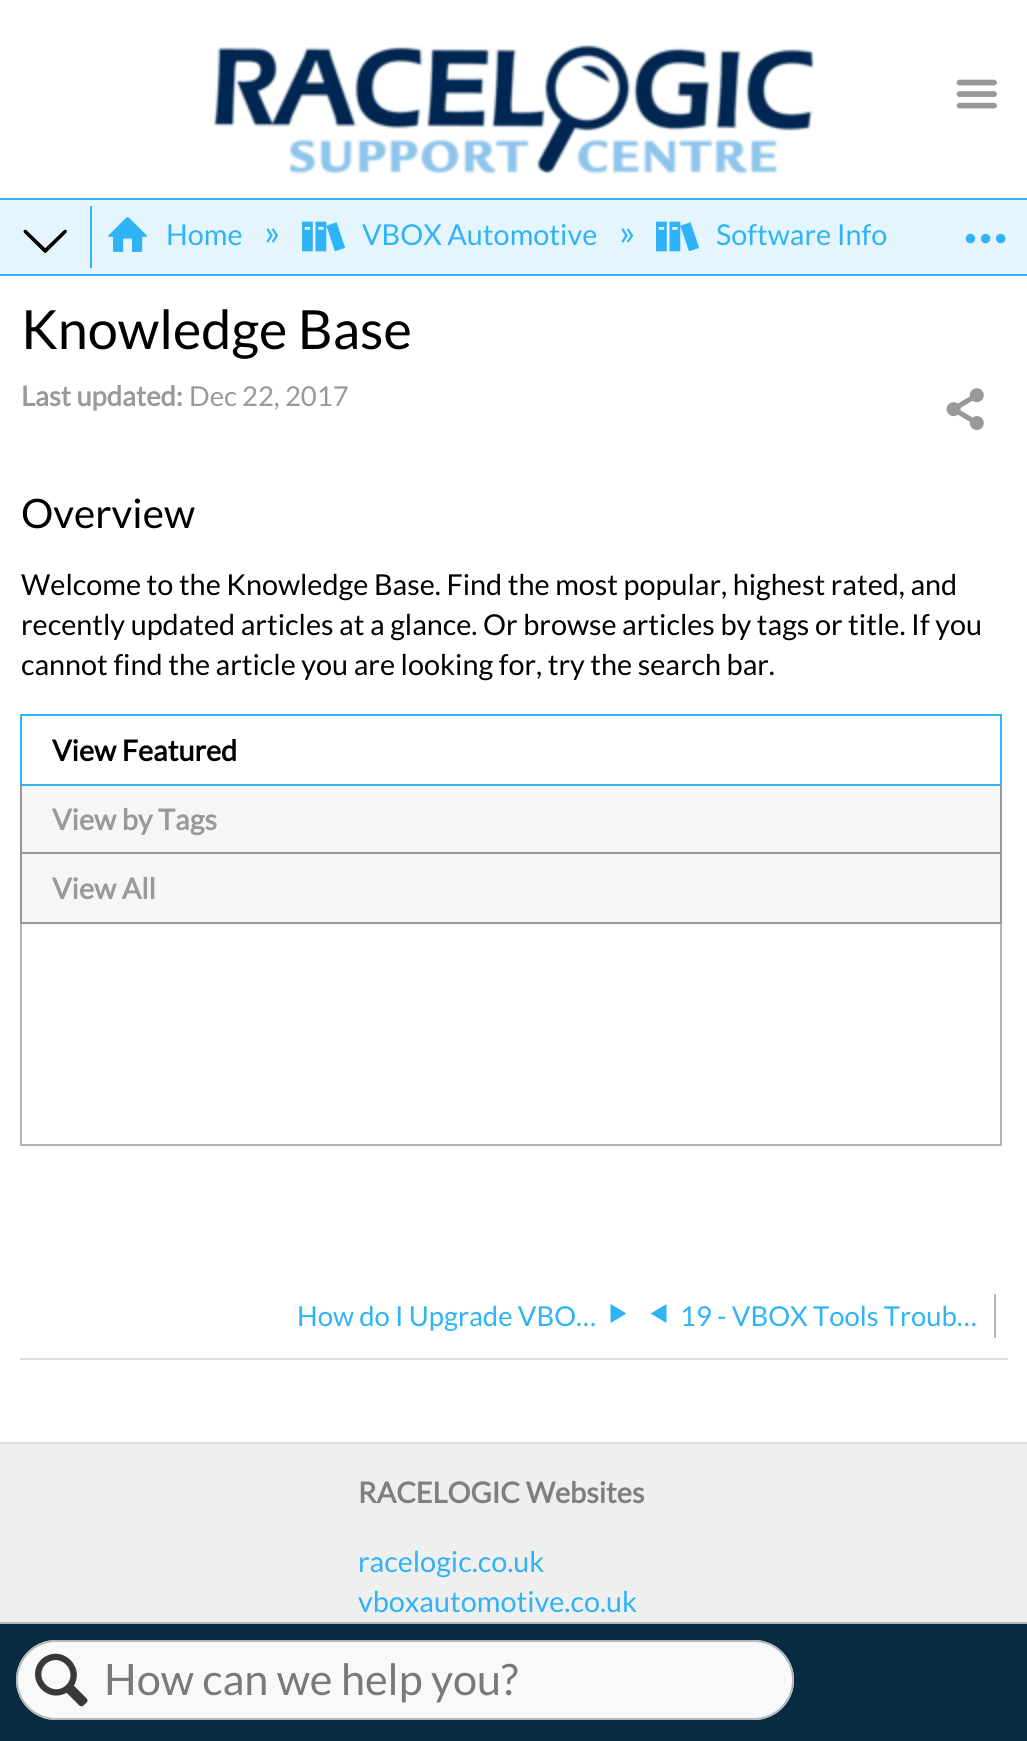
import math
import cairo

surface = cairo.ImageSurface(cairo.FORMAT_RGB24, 1027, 1741)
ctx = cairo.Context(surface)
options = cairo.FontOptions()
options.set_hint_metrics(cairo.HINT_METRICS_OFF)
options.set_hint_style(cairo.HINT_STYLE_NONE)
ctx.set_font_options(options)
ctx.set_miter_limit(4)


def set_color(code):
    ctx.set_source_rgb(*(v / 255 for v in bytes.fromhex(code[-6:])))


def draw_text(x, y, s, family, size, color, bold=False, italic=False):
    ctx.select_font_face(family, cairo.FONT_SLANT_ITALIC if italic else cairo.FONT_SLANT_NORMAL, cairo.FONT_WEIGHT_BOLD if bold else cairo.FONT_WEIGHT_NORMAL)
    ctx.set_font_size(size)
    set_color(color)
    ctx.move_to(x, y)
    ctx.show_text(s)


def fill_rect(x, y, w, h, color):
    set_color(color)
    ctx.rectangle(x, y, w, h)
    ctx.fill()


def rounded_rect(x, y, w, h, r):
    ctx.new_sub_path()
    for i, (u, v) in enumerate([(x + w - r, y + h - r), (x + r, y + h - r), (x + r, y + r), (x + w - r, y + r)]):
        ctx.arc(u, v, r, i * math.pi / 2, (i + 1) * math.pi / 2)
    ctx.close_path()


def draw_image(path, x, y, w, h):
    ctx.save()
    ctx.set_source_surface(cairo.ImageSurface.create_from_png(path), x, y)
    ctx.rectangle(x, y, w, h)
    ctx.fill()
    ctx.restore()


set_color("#ffffff")
ctx.paint()
draw_image("assets/img1.png", 214, 44, 600, 130)
draw_image("assets/img2.png", 956, 79, 41, 30)
fill_rect(0, 200, 1027, 74, "#e5f5fe")
fill_rect(0, 198, 1027, 2, "#30b3f6")
fill_rect(0, 274, 1027, 2, "#30b3f6")
draw_image("assets/img3.png", 23, 229, 44, 24)
fill_rect(90, 206, 2, 62, "#30b3f6")
draw_image("assets/img4.png", 108, 217, 39, 35)
draw_text(166, 245, "Home", "Lato", 28.8, "#30b3f6")
draw_text(264, 245, "»", "Lato", 36, "#30b3f6")
draw_image("assets/img5.png", 302, 221, 44, 31)
draw_text(362, 245, "VBOX Automotive", "Lato", 28.8, "#30b3f6")
draw_text(619, 245, "»", "Lato", 36, "#30b3f6")
draw_image("assets/img5.png", 656, 221, 44, 31)
draw_text(716, 245, "Software Info", "Lato", 28.8, "#30b3f6")
draw_image("assets/img6.png", 965, 233, 41, 11)
fill_rect(0, 1622, 1027, 2, "#b6b6b6")
fill_rect(0, 1624, 1027, 117, "#072c3f")
ctx.set_source_rgba(1, 1, 1, 0.97)
rounded_rect(16, 1640, 778, 80, 40)
ctx.fill()
rounded_rect(17, 1641, 776, 78, 39)
ctx.set_source_rgba(0.706, 0.706, 0.706, 0.97)
ctx.stroke()
draw_image("assets/img7.png", 35, 1653, 53, 54)
draw_text(104, 1695, "How can we help you?", "Lato", 43.25, "#797979")
draw_text(21, 349, "Knowledge Base", "Lato", 54, "#000000")
draw_text(21, 406, "Last updated:", "Lato", 27.4, "#999999", bold=True)
draw_text(189, 406, "Dec 22, 2017", "Lato", 27.4, "#999999")
draw_image("assets/img8.png", 946, 388, 38, 42)
draw_text(21, 528, "Overview", "Lato", 40.5, "#000000")
draw_text(21, 595, "Welcome to the Knowledge Base. Find the most popular, highest rated, and", "Lato", 28.8, "#000000")
draw_text(21, 635, "recently updated articles at a glance. Or browse articles by tags or title. If you", "Lato", 28.8, "#000000")
draw_text(21, 675, "cannot find the article you are looking for, try the search bar.", "Lato", 28.8, "#000000")
fill_rect(20, 714, 982, 2, "#30b3f6")
fill_rect(1000, 714, 2, 70, "#30b3f6")
fill_rect(20, 714, 2, 70, "#30b3f6")
draw_text(52, 761, "View Featured", "Lato", 28.8, "#000000", bold=True)
fill_rect(22, 786, 978, 66, "#f6f6f6")
fill_rect(20, 784, 982, 2, "#30b3f6")
fill_rect(1000, 784, 2, 68, "#989898")
fill_rect(20, 784, 2, 68, "#989898")
draw_text(52, 830, "View by Tags", "Lato", 28.8, "#999999", bold=True)
set_color("#f6f6f6")
ctx.rectangle(21, 853, 980, 70)
ctx.fill_preserve()
set_color("#989898")
ctx.stroke()
draw_text(52, 899, "View All", "Lato", 28.8, "#999999", bold=True)
fill_rect(1000, 924, 2, 222, "#b4b4b4")
fill_rect(20, 1144, 982, 2, "#b4b4b4")
fill_rect(20, 924, 2, 222, "#b4b4b4")
fill_rect(20, 1358, 988, 2, "#dddddd")
draw_text(297, 1326, "How do I Upgrade VBO…", "Lato", 27.4, "#30b3f6")
fill_rect(994, 1294, 2, 44, "#b4b4b4")
set_color("#30b3f6")
ctx.new_path()
ctx.move_to(666.5, 1304)
ctx.line_to(666.5, 1323)
ctx.line_to(650.5, 1313.5)
ctx.close_path()
ctx.move_to(610.5, 1304)
ctx.line_to(610.5, 1323)
ctx.line_to(626.5, 1313.5)
ctx.close_path()
ctx.fill()
draw_text(680, 1326, "19 - VBOX Tools Troub…", "Lato", 27.4, "#30b3f6")
fill_rect(0, 1444, 1027, 178, "#efefef")
fill_rect(0, 1442, 1027, 2, "#dddddd")
draw_text(358, 1503, "RACELOGIC Websites", "Lato", 28.8, "#7f7f7f", bold=True)
draw_text(358, 1572, "racelogic.co.uk", "Lato", 28.8, "#30b3f6")
draw_text(358, 1612, "vboxautomotive.co.uk", "Lato", 28.8, "#30b3f6")
surface.write_to_png("output.png")
